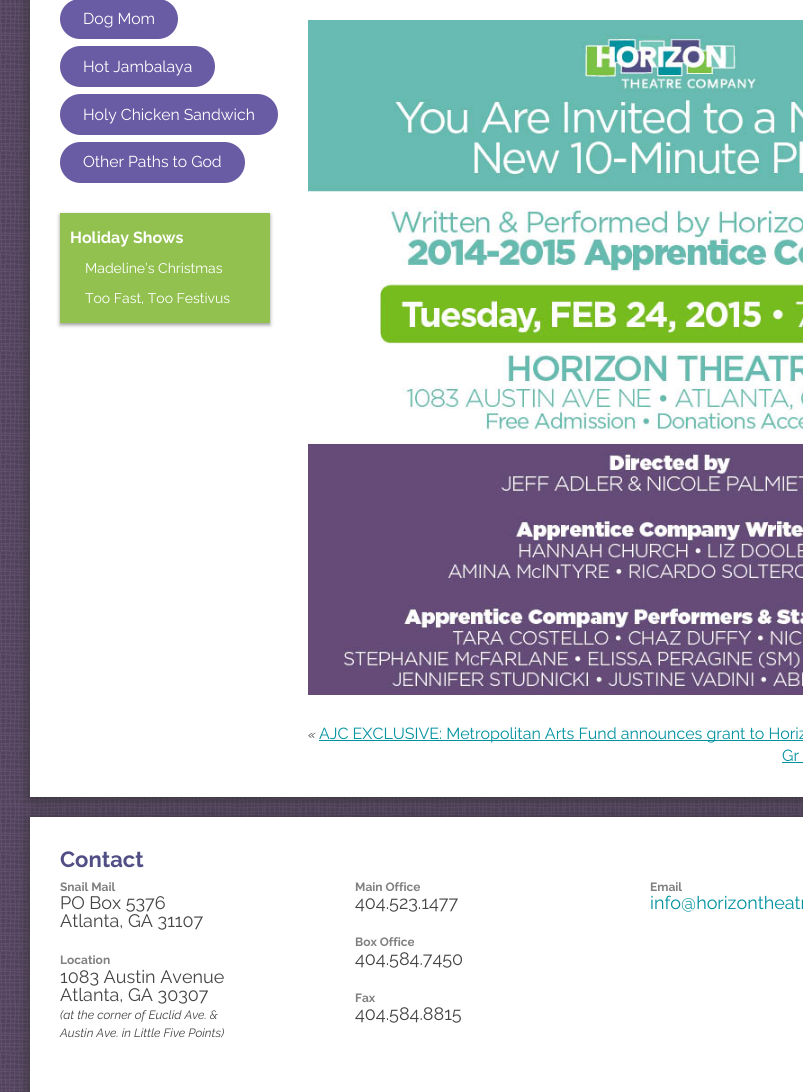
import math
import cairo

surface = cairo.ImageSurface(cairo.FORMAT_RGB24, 803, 1092)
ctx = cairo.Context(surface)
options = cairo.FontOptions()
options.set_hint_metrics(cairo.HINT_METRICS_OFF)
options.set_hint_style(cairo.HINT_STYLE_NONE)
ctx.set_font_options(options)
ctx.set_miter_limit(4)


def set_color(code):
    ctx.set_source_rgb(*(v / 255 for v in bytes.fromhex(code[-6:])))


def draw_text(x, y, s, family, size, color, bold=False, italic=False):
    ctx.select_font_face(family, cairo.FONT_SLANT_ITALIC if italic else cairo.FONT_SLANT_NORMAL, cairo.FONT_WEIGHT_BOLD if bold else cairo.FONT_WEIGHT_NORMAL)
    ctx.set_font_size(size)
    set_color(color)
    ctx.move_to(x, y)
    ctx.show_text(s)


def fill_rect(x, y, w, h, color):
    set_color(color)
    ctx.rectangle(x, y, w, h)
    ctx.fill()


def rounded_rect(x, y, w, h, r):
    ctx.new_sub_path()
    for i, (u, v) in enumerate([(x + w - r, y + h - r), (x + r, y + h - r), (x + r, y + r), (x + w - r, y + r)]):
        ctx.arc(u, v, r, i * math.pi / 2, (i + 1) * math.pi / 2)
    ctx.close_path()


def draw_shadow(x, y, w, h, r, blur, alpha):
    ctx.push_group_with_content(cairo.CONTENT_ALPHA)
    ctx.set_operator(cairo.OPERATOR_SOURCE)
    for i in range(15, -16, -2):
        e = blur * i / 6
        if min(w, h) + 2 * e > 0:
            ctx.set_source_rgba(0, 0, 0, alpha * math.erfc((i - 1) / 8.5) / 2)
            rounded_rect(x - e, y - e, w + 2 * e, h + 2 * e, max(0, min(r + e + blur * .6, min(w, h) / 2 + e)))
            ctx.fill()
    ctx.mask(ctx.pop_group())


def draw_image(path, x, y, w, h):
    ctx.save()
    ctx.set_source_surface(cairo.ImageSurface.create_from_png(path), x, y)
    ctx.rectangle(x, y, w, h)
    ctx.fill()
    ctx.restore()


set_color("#ffffff")
ctx.paint()
draw_image("assets/img1.png", 0, 0, 803, 1092)
set_color("#333333")
draw_shadow(30, -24, 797, 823, 0, 8, 1)
fill_rect(30, 0, 773, 797, "#ffffff")
set_color("#6a5ca4")
rounded_rect(60, -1, 118, 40, 20)
ctx.fill()
draw_text(83, 24, "Dog Mom", "Raleway", 15.75, "#ffffff")
set_color("#6a5ca4")
rounded_rect(60, 46, 155, 41, 20.5)
ctx.fill()
draw_text(83, 72, "Hot Jambalaya", "Raleway", 15.75, "#ffffff")
set_color("#6a5ca4")
rounded_rect(60, 94, 218, 41, 20.5)
ctx.fill()
draw_text(83, 120, "Holy Chicken Sandwich", "Raleway", 15.75, "#ffffff")
set_color("#6a5ca4")
rounded_rect(60, 142, 185, 41, 20.5)
ctx.fill()
draw_text(83, 167, "Other Paths to God", "Raleway", 15.75, "#ffffff")
set_color("#999999")
draw_shadow(60, 215, 210, 110, 0, 2, 1)
fill_rect(60, 213, 210, 110, "#92c14f")
draw_text(70, 243, "Holiday Shows", "Raleway", 16, "#ffffff", bold=True)
draw_text(85, 273, "Madeline’s Christmas", "Raleway", 14, "#ffffff")
draw_text(85, 303, "Too Fast, Too Festivus", "Raleway", 14, "#ffffff")
draw_image("assets/img2.png", 308, 20, 495, 675)
draw_text(308, 739, "«", "Raleway", 14, "#444444", italic=True)
fill_rect(319, 740, 484, 1, "#00929f")
draw_text(319, 739, "AJC EXCLUSIVE: Metropolitan Arts Fund announces grant to Horiz", "Raleway", 16, "#00929f")
draw_text(782, 761, "Gr", "Raleway", 16, "#00929f")
fill_rect(782, 762, 21, 1, "#00929f")
set_color("#333333")
draw_shadow(30, 819, 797, 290, 0, 8, 1)
fill_rect(30, 817, 773, 275, "#ffffff")
draw_text(60, 867, "Contact", "Raleway", 22, "#514e86", bold=True)
draw_text(60, 891, "Snail Mail", "Raleway", 12, "#808080", bold=True)
draw_text(60, 909, "PO Box 5376", "Raleway", 18, "#444444")
draw_text(60, 927, "Atlanta, GA 31107", "Raleway", 18, "#444444")
draw_text(60, 964, "Location", "Raleway", 12, "#808080", bold=True)
draw_text(60, 983, "1083 Austin Avenue", "Raleway", 18, "#444444")
draw_text(60, 1001, "Atlanta, GA 30307", "Raleway", 18, "#444444")
draw_text(60, 1019, "(at the corner of Euclid Ave. &", "Raleway", 12, "#444444", italic=True)
draw_text(60, 1037, "Austin Ave. in Little Five Points)", "Raleway", 12, "#444444", italic=True)
draw_text(355, 891, "Main Office", "Raleway", 12, "#808080", bold=True)
draw_text(355, 909, "404.523.1477", "Raleway", 18, "#444444")
draw_text(355, 946, "Box Office", "Raleway", 12, "#808080", bold=True)
draw_text(355, 965, "404.584.7450", "Raleway", 18, "#444444")
draw_text(355, 1002, "Fax", "Raleway", 12, "#808080", bold=True)
draw_text(355, 1020, "404.584.8815", "Raleway", 18, "#444444")
draw_text(650, 891, "Email", "Raleway", 12, "#808080", bold=True)
draw_text(650, 909, "info@horizontheatr", "Raleway", 18, "#00929f")
surface.write_to_png("output.png")
